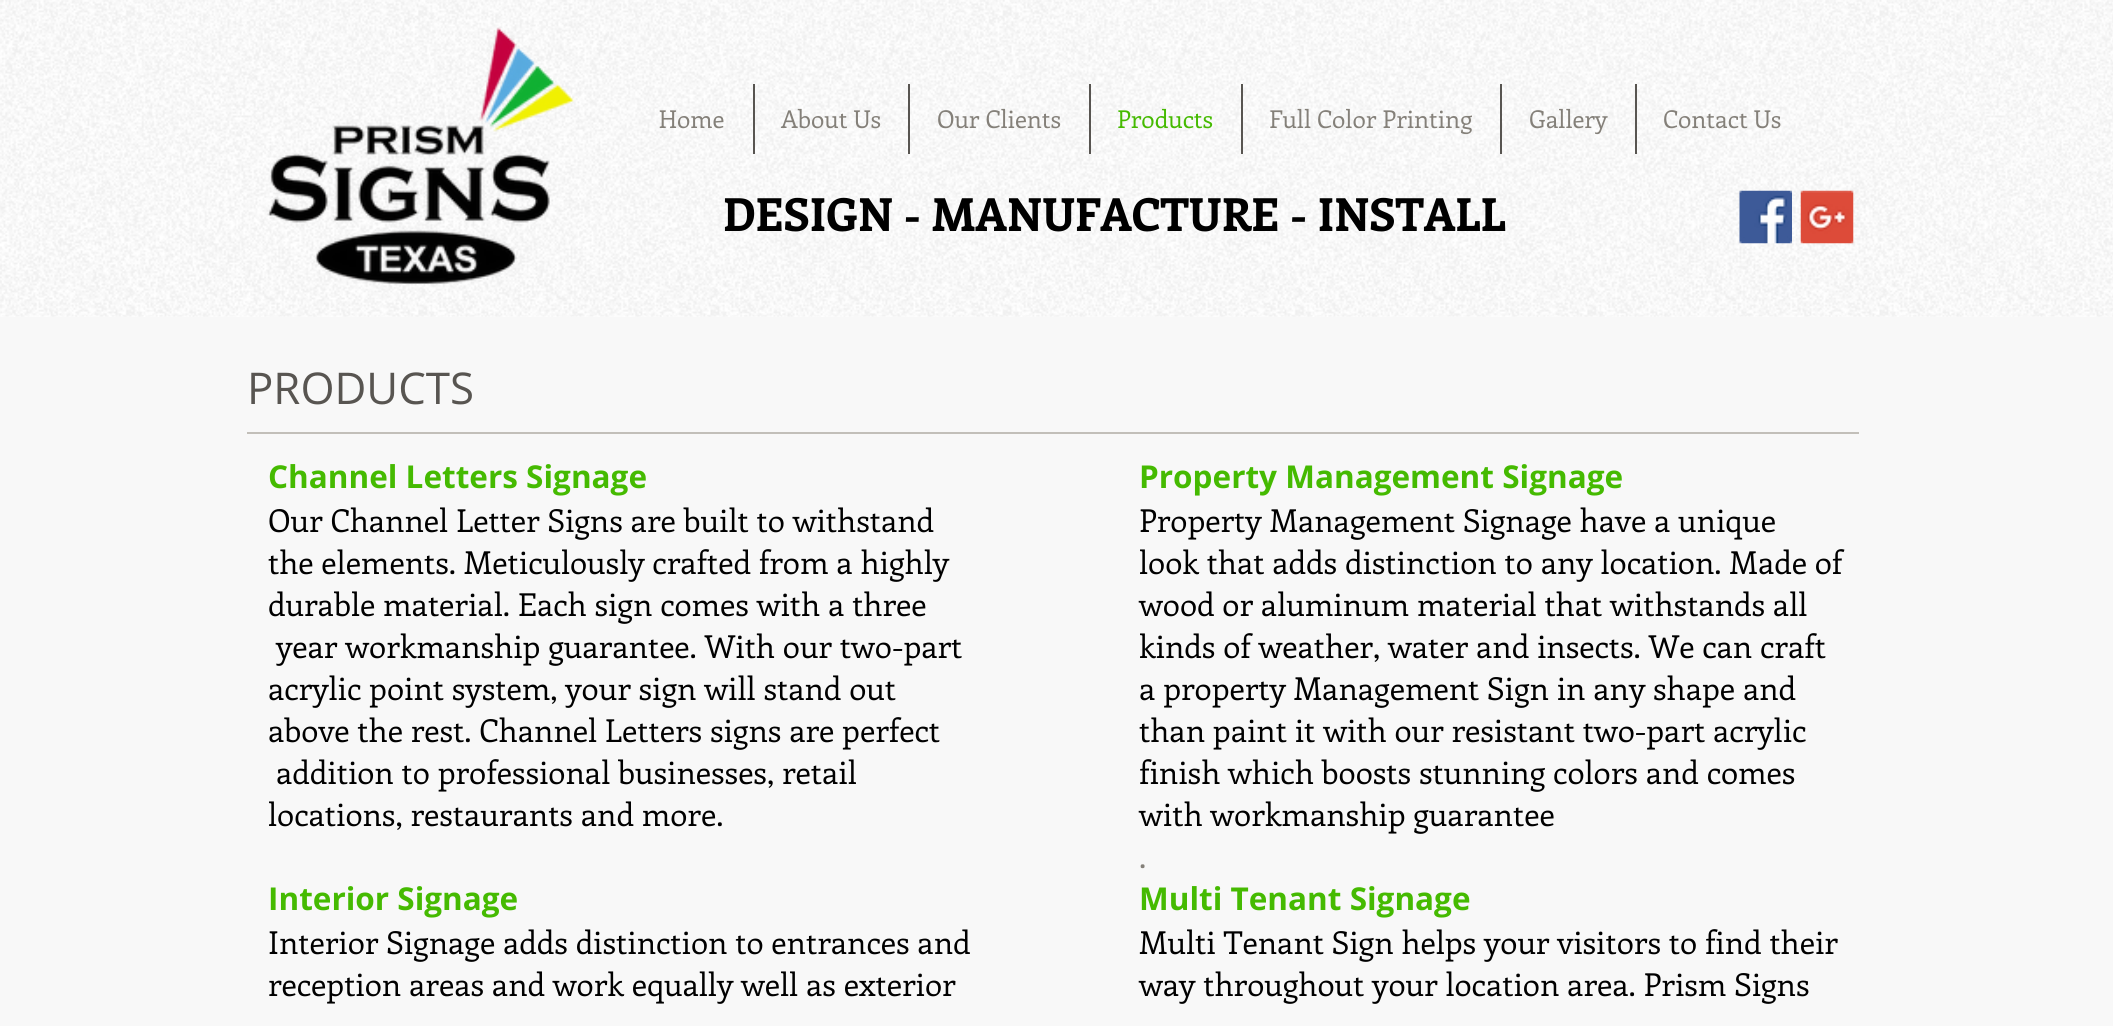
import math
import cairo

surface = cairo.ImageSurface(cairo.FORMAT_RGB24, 2113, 1026)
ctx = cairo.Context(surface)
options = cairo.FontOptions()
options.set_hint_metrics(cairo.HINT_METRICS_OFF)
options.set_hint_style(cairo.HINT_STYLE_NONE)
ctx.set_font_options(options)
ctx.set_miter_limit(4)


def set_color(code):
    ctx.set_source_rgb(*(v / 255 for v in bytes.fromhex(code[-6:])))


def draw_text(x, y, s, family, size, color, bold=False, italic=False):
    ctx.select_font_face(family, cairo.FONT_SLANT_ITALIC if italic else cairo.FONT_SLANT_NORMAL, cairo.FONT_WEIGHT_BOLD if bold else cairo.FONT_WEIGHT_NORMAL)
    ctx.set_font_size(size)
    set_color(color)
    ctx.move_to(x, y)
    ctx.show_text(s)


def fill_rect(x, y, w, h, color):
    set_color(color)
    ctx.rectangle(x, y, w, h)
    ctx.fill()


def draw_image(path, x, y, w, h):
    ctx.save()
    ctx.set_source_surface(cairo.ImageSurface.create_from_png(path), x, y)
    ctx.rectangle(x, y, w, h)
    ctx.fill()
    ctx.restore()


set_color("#f8f8f8")
ctx.paint()
fill_rect(0, 0, 2113, 317, "#ffffff")
draw_image("assets/img1.png", 0, 0, 2113, 317)
draw_image("assets/img2.png", 267, 27, 307, 257)
draw_text(659, 128, "Home", "Enriqueta", 24.5, "#848079")
fill_rect(753, 84, 2, 70, "#585551")
draw_text(781, 128, "About Us", "Enriqueta", 24.5, "#848079")
fill_rect(908, 84, 2, 70, "#585551")
draw_text(937, 128, "Our Clients", "Enriqueta", 24.5, "#848079")
fill_rect(1089, 84, 2, 70, "#585551")
draw_text(1117, 128, "Products", "Enriqueta", 24.5, "#45ba01")
fill_rect(1241, 84, 2, 70, "#585551")
draw_text(1269, 128, "Full Color Printing", "Enriqueta", 24.5, "#848079")
fill_rect(1500, 84, 2, 70, "#585551")
draw_text(1529, 128, "Gallery", "Enriqueta", 24.5, "#848079")
fill_rect(1635, 84, 2, 70, "#585551")
draw_text(1663, 128, "Contact Us", "Enriqueta", 24.5, "#848079")
draw_text(723, 231, "DESIGN - MANUFACTURE - INSTALL", "Enriqueta", 45.5, "#000000", bold=True)
draw_image("assets/img3.png", 1739, 190, 53, 54)
draw_image("assets/img4.png", 1800, 190, 54, 54)
draw_text(247, 404, "PRODUCTS", "Open Sans", 43.75, "#585551")
fill_rect(247, 432, 1612, 2, "#c2bfb9")
draw_text(268, 488, "Channel Letters Signage", "Open Sans", 31.5, "#45ba01", bold=True)
draw_text(268, 532, "Our Channel Letter Signs are built to withstand", "Enriqueta", 31.5, "#000000")
draw_text(268, 574, "the elements. Meticulously crafted from a highly", "Enriqueta", 31.5, "#000000")
draw_text(268, 616, "durable material. Each sign comes with a three", "Enriqueta", 31.5, "#000000")
draw_text(276, 658, "year workmanship guarantee. With our two-part", "Enriqueta", 31.5, "#000000")
draw_text(268, 700, "acrylic point system, your sign will stand out", "Enriqueta", 31.5, "#000000")
draw_text(268, 742, "above the rest. Channel Letters signs are perfect", "Enriqueta", 31.5, "#000000")
draw_text(276, 784, "addition to professional businesses, retail", "Enriqueta", 31.5, "#000000")
draw_text(268, 826, "locations, restaurants and more.", "Enriqueta", 31.5, "#000000")
draw_text(268, 910, "Interior Signage", "Open Sans", 31.5, "#45ba01", bold=True)
draw_text(268, 954, "Interior Signage adds distinction to entrances and", "Enriqueta", 31.5, "#000000")
draw_text(268, 996, "reception areas and work equally well as exterior", "Enriqueta", 31.5, "#000000")
draw_text(1139, 488, "Property Management Signage", "Open Sans", 31.5, "#45ba01", bold=True)
draw_text(1139, 532, "Property Management Signage have a unique", "Enriqueta", 31.5, "#000000")
draw_text(1139, 574, "look that adds distinction to any location. Made of", "Enriqueta", 31.5, "#000000")
draw_text(1139, 616, "wood or aluminum material that withstands all", "Enriqueta", 31.5, "#000000")
draw_text(1139, 658, "kinds of weather, water and insects. We can craft", "Enriqueta", 31.5, "#000000")
draw_text(1139, 700, "a property Management Sign in any shape and", "Enriqueta", 31.5, "#000000")
draw_text(1139, 742, "than paint it with our resistant two-part acrylic", "Enriqueta", 31.5, "#000000")
draw_text(1139, 784, "finish which boosts stunning colors and comes", "Enriqueta", 31.5, "#000000")
draw_text(1139, 826, "with workmanship guarantee", "Enriqueta", 31.5, "#000000")
draw_text(1139, 868, ".", "Enriqueta", 31.5, "#848079")
draw_text(1139, 910, "Multi Tenant Signage", "Open Sans", 31.5, "#45ba01", bold=True)
draw_text(1139, 954, "Multi Tenant Sign helps your visitors to find their", "Enriqueta", 31.5, "#000000")
draw_text(1139, 996, "way throughout your location area. Prism Signs", "Enriqueta", 31.5, "#000000")
surface.write_to_png("output.png")
